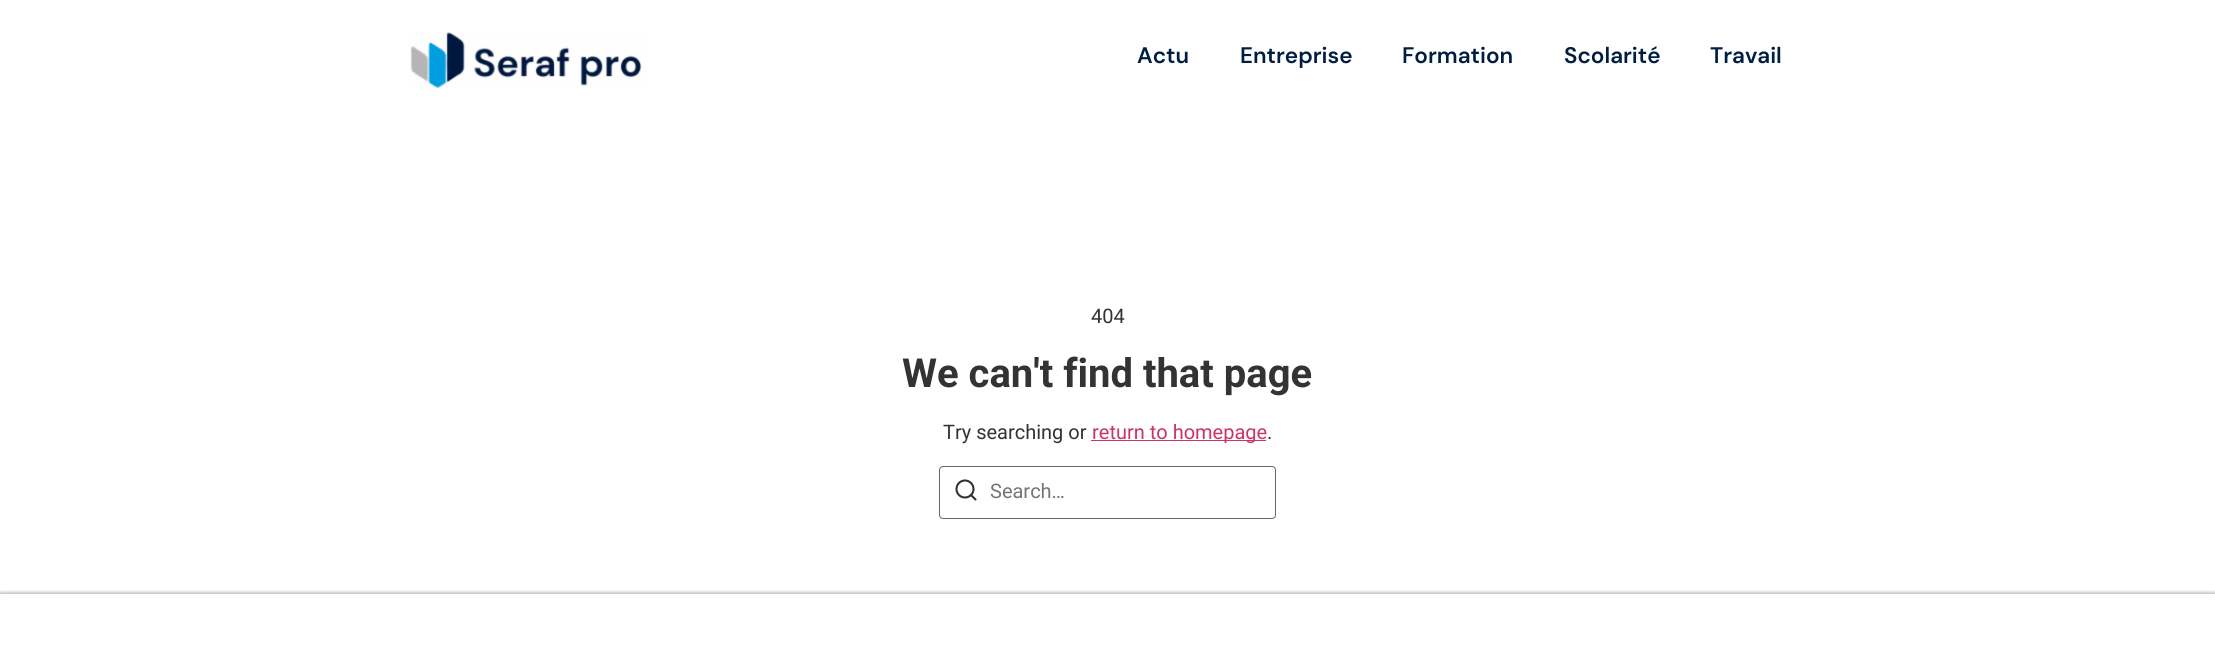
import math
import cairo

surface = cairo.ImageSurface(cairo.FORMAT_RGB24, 2215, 651)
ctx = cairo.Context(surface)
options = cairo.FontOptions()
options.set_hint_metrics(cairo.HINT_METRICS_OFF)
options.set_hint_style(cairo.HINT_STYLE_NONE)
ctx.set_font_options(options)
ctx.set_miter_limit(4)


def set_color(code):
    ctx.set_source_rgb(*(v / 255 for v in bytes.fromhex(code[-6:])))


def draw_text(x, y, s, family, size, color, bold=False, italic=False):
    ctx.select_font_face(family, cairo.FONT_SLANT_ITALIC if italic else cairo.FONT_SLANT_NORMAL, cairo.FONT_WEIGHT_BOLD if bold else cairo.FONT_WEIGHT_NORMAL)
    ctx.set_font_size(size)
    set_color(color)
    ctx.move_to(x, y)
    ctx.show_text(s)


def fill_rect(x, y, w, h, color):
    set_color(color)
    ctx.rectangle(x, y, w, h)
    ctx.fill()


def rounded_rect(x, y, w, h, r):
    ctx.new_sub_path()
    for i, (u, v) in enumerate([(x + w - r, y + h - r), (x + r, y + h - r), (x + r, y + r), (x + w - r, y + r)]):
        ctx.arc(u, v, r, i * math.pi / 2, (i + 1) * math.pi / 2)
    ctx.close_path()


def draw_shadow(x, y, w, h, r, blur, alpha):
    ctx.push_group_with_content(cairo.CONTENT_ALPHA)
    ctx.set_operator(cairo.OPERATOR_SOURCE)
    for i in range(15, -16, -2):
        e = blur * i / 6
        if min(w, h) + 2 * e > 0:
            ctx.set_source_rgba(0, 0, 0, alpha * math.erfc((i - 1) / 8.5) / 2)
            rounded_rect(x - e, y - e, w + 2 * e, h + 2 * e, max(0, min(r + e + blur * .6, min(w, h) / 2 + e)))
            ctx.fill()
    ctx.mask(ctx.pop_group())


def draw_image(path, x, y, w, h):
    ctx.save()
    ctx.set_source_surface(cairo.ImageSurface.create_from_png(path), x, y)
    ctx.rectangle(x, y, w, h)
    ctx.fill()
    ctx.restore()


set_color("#ffffff")
ctx.paint()
draw_image("assets/img1.png", 410, 32, 232, 57)
draw_text(1137, 63, "Actu", "DM Sans SemiBold", 22.5, "#001e41")
draw_text(1240, 63, "Entreprise", "DM Sans SemiBold", 22.5, "#001e41")
draw_text(1402, 63, "Formation", "DM Sans SemiBold", 22.5, "#001e41")
draw_text(1564, 63, "Scolarité", "DM Sans SemiBold", 22.5, "#001e41")
draw_text(1710, 63, "Travail", "DM Sans SemiBold", 22.5, "#001e41")
draw_text(1091, 323, "404", "Roboto", 20, "#333333")
draw_text(902, 387, "We can't find that page", "Roboto", 40, "#333333", bold=True)
draw_text(943, 439, "Try searching or", "Roboto", 20, "#333333")
fill_rect(1091, 440, 175, 1, "#cc3366")
draw_text(1092, 439, "return to homepage", "Roboto", 20, "#cc3366")
draw_text(1267, 439, ".", "Roboto", 20, "#333333")
rounded_rect(939.5, 466.5, 336, 52, 3.5)
set_color("#666666")
ctx.set_line_width(1)
ctx.stroke()
ctx.arc(965, 489, 8.5, 0, 2 * math.pi)
set_color("#333333")
ctx.set_line_width(2.1)
ctx.stroke()
ctx.new_path()
ctx.move_to(975.5, 499.5)
ctx.line_to(971, 495)
ctx.set_line_cap(cairo.LINE_CAP_ROUND)
ctx.set_line_join(cairo.LINE_JOIN_ROUND)
ctx.stroke()
draw_text(990, 498, "Search…", "Roboto", 20, "#757575")
ctx.save()
ctx.rectangle(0, 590, 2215, 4)
ctx.clip()
set_color("#000000")
draw_shadow(0, 594, 2215, 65, 0, 2.5, 0.5)
ctx.restore()
surface.write_to_png("output.png")
